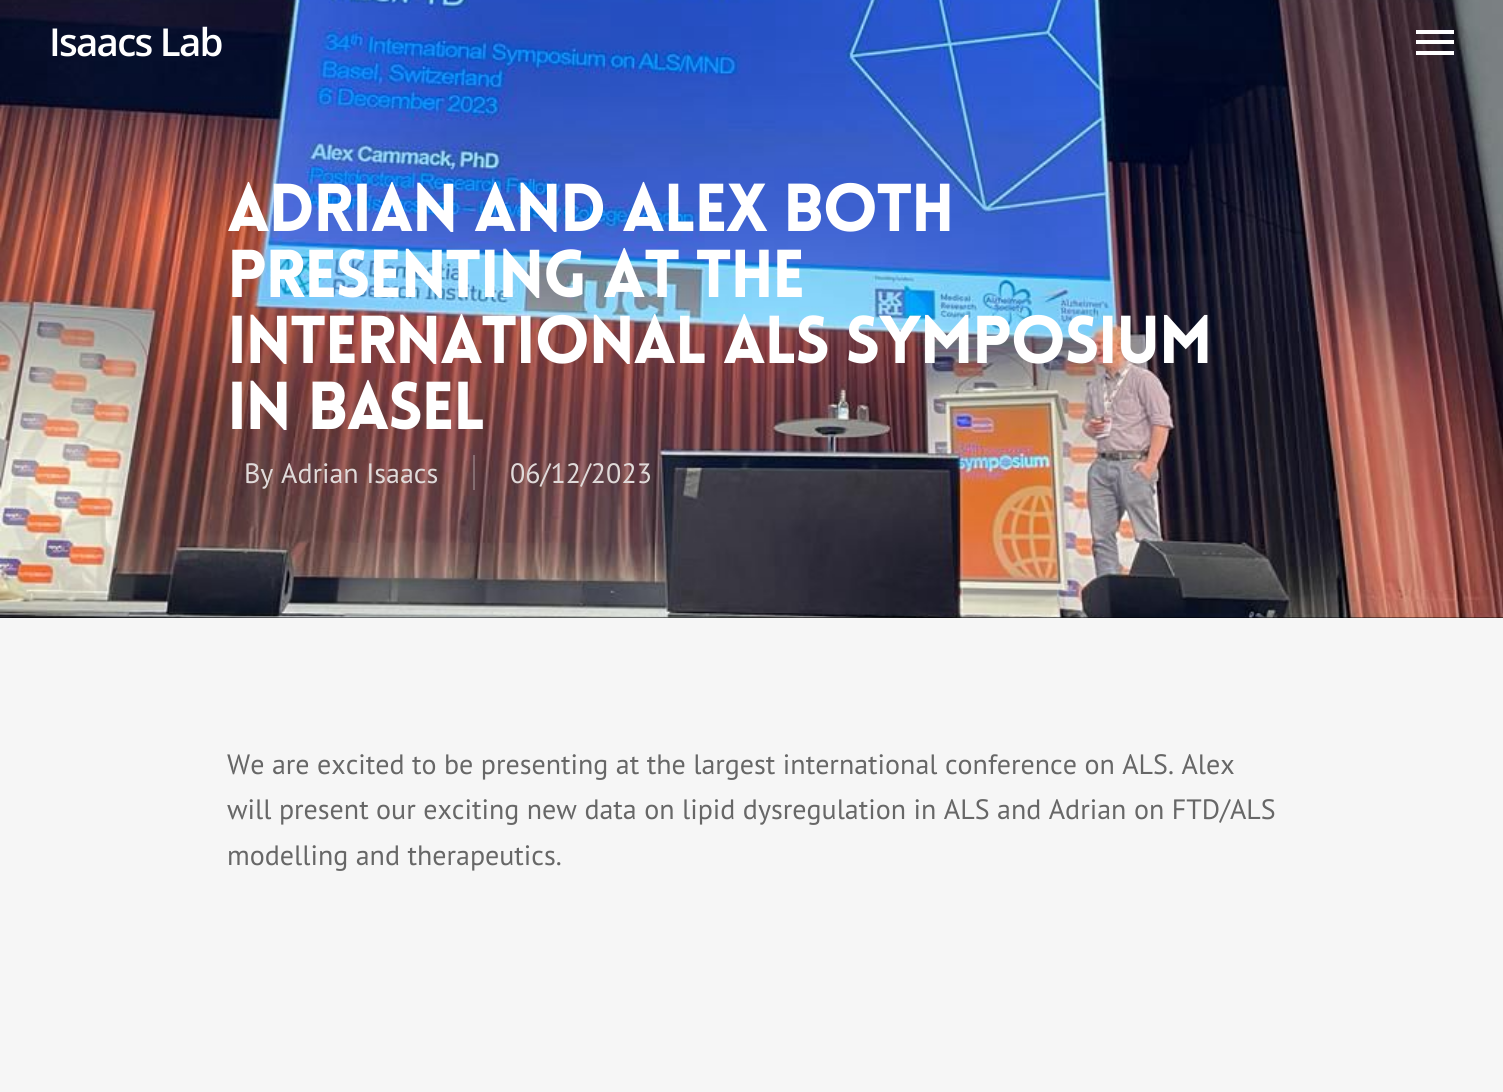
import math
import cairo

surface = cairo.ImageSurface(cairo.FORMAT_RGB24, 1503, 1092)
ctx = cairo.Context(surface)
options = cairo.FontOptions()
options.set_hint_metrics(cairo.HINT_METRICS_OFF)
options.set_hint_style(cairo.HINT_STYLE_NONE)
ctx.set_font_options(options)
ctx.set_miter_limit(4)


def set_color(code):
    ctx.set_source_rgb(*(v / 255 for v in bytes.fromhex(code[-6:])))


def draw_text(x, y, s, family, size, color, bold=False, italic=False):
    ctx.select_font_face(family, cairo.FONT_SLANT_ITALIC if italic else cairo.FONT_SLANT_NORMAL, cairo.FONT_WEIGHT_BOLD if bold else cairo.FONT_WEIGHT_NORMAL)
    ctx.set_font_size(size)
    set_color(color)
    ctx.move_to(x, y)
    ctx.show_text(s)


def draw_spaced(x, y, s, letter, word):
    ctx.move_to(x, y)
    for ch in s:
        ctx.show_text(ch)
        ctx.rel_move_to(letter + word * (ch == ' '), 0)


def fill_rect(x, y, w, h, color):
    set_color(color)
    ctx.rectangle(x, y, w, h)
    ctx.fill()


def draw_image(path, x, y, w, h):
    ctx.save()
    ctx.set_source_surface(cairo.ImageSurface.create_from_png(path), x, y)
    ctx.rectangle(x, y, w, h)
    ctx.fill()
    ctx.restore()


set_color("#000000")
ctx.paint()
draw_image("assets/img1.png", 0, 0, 1503, 618)
ctx.select_font_face("Open Sans SemiBold")
ctx.set_font_size(38.5)
set_color("#ffffff")
draw_spaced(49, 56, "Isaacs Lab", -1.75, 0)
fill_rect(1416, 30, 38, 4, "#ffffff")
fill_rect(1416, 51, 38, 4, "#ffffff")
fill_rect(1416, 40, 38, 4, "#ffffff")
ctx.select_font_face("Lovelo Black")
ctx.set_font_size(66.2)
draw_spaced(227, 231, "Adrian and Alex both", -1.75, 0)
draw_spaced(227, 297, "presenting at the", -1.75, 0)
draw_spaced(227, 363, "International ALS Symposium", -1.75, 0)
draw_spaced(227, 429, "in Basel", -1.75, 0)
draw_text(244, 483, "By", "PT Sans", 28, "#e0dad9")
draw_text(281, 483, "Adrian Isaacs", "PT Sans", 28, "#e0dad9")
draw_text(510, 483, "06/12/2023", "PT Sans", 28, "#e0dad9")
ctx.set_source_rgba(1, 1, 1, 0.25)
ctx.rectangle(473, 455, 2, 35)
ctx.fill()
fill_rect(0, 618, 1503, 474, "#f6f6f6")
draw_text(227, 774, "We are excited to be presenting at the largest international conference on ALS. Alex", "PT Sans", 28, "#676767")
draw_text(227, 819, "will present our exciting new data on lipid dysregulation in ALS and Adrian on FTD/ALS", "PT Sans", 28, "#676767")
draw_text(227, 865, "modelling and therapeutics.", "PT Sans", 28, "#676767")
surface.write_to_png("output.png")
